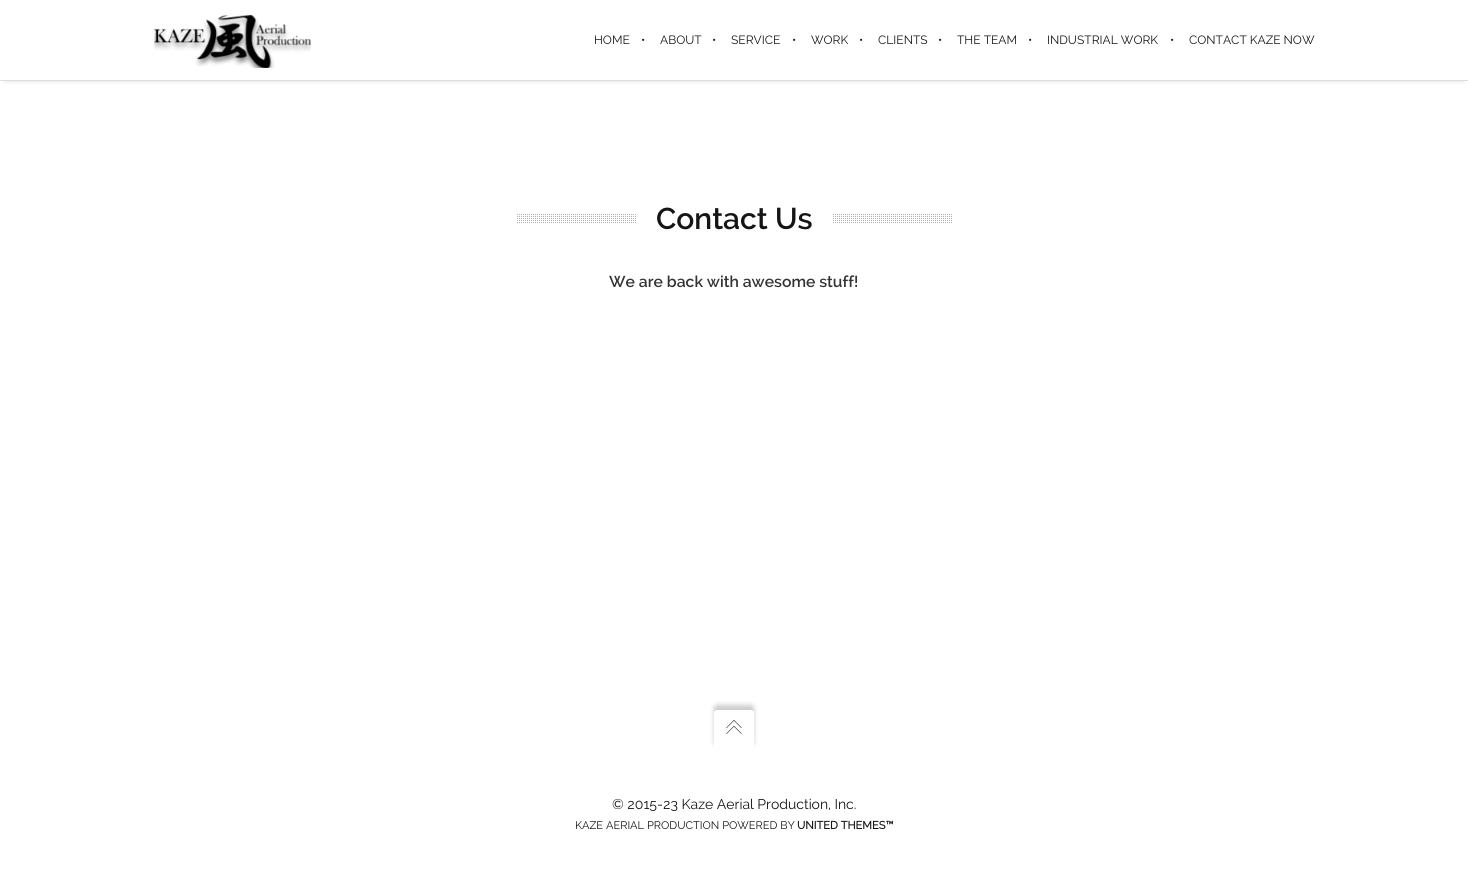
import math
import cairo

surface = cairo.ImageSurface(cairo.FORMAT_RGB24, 1468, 874)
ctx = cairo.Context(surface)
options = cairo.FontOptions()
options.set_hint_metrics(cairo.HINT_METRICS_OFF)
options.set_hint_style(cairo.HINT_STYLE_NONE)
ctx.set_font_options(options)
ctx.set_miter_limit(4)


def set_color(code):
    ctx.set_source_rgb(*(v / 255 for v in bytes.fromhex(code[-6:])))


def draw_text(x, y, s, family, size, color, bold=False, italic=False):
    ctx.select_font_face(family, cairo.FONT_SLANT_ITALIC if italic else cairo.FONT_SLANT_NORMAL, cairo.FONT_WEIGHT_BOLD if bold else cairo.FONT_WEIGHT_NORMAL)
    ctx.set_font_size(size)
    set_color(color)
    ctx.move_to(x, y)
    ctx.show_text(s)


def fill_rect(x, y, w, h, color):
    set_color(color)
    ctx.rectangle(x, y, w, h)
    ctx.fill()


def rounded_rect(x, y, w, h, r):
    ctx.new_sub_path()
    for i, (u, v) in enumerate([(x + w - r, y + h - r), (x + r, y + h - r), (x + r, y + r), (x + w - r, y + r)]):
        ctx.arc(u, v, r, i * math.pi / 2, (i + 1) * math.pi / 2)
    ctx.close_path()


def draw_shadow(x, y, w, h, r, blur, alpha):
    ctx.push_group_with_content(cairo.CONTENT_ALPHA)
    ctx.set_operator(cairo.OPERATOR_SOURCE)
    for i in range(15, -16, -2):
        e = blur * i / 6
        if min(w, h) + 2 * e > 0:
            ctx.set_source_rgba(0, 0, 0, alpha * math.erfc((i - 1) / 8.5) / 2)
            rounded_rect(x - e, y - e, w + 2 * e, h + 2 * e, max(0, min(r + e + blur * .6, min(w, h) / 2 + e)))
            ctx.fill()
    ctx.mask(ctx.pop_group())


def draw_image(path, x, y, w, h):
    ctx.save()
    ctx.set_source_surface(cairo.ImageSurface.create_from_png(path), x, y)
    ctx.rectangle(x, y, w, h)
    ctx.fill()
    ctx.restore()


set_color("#ffffff")
ctx.paint()
ctx.save()
ctx.rectangle(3, 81, 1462, 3)
ctx.clip()
set_color("#000000")
draw_shadow(4, 9, 1460, 73, 0, 2.5, 0.1)
ctx.restore()
fill_rect(0, 80, 1468, 1, "#dddddd")
draw_image("assets/img1.png", 154, 14, 157, 54)
draw_text(594, 44, "HOME", "Raleway", 12, "#151515")
draw_text(641, 44, "•", "Raleway", 12, "#151515")
draw_text(660, 44, "ABOUT", "Raleway", 12, "#151515")
draw_text(712, 44, "•", "Raleway", 12, "#151515")
draw_text(731, 44, "SERVICE", "Raleway", 12, "#151515")
draw_text(792, 44, "•", "Raleway", 12, "#151515")
draw_text(811, 44, "WORK", "Raleway", 12, "#151515")
draw_text(859, 44, "•", "Raleway", 12, "#151515")
draw_text(878, 44, "CLIENTS", "Raleway", 12, "#151515")
draw_text(938, 44, "•", "Raleway", 12, "#151515")
draw_text(957, 44, "THE TEAM", "Raleway", 12, "#151515")
draw_text(1028, 44, "•", "Raleway", 12, "#151515")
draw_text(1047, 44, "INDUSTRIAL WORK", "Raleway", 12, "#151515")
draw_text(1170, 44, "•", "Raleway", 12, "#151515")
draw_text(1189, 44, "CONTACT KAZE NOW", "Raleway", 12, "#151515")
draw_image("assets/img2.png", 517, 214, 119, 9)
draw_text(656, 229, "Contact Us", "Raleway SemiBold", 30, "#151515")
draw_image("assets/img2.png", 833, 214, 119, 9)
draw_text(609, 287, "We are back with awesome stuff!", "Raleway SemiBold", 15.75, "#333333")
set_color("#000000")
draw_shadow(714, 705, 40, 40, 3, 2.5, 0.2)
set_color("#ffffff")
ctx.new_path()
ctx.move_to(717, 710)
ctx.line_to(751, 710)
ctx.curve_to(752.5, 710, 754, 711.5, 754, 713)
ctx.line_to(754, 750)
ctx.line_to(714, 750)
ctx.line_to(714, 713)
ctx.curve_to(714, 711.5, 715.5, 710, 717, 710)
ctx.close_path()
ctx.fill()
draw_image("assets/img3.png", 726, 720, 16, 14)
draw_text(612, 809, "© 2015-23 Kaze Aerial Production, Inc.", "Raleway", 14, "#151515")
draw_text(575, 829, "KAZE AERIAL PRODUCTION POWERED BY", "Raleway", 11, "#151515")
draw_text(797, 829, "UNITED THEMES™", "Raleway", 11, "#151515", bold=True)
surface.write_to_png("output.png")
